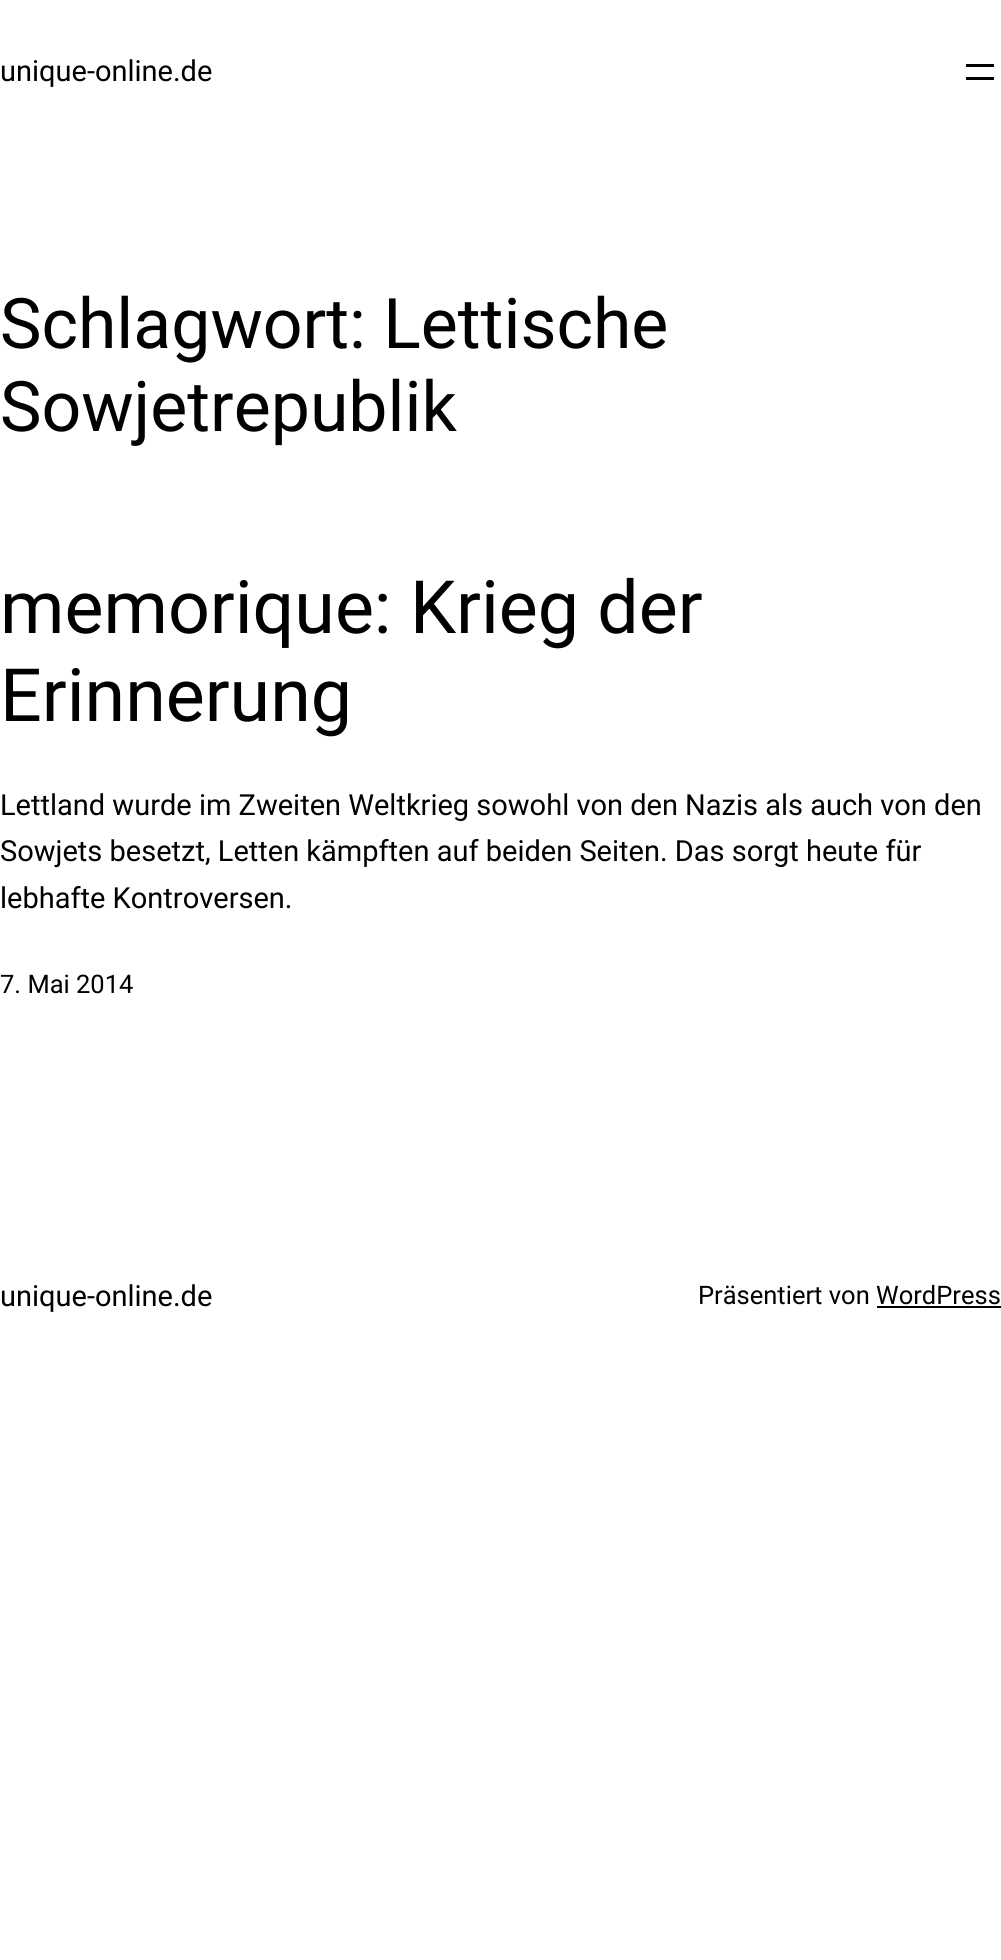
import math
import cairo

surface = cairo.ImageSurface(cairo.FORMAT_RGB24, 1001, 1960)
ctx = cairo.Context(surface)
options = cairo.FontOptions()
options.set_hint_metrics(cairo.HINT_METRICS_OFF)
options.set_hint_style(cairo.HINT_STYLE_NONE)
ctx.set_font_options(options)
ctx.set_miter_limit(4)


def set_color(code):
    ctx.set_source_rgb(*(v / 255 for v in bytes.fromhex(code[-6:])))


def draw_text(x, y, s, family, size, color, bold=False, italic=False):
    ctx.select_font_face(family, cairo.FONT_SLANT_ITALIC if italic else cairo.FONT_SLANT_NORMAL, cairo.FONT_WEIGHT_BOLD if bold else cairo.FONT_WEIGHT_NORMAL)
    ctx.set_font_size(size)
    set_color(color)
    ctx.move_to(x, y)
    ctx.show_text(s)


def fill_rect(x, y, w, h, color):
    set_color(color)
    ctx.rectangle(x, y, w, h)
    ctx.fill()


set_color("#ffffff")
ctx.paint()
draw_text(0, 81, "unique-online.de", "Roboto", 29, "#000000")
fill_rect(966, 64, 28, 3, "#000000")
fill_rect(966, 77, 28, 3, "#000000")
draw_text(0, 348, "Schlagwort: Lettische", "Roboto", 69.75, "#000000")
draw_text(0, 431, "Sowjetrepublik", "Roboto", 69.75, "#000000")
draw_text(0, 633, "memorique: Krieg der", "Roboto", 73.5, "#000000")
draw_text(0, 721, "Erinnerung", "Roboto", 73.5, "#000000")
draw_text(0, 815, "Lettland wurde im Zweiten Weltkrieg sowohl von den Nazis als auch von den", "Roboto", 29, "#000000")
draw_text(0, 861, "Sowjets besetzt, Letten kämpften auf beiden Seiten. Das sorgt heute für", "Roboto", 29, "#000000")
draw_text(0, 908, "lebhafte Kontroversen.", "Roboto", 29, "#000000")
draw_text(0, 993, "7. Mai 2014", "Roboto", 25.5, "#000000")
draw_text(0, 1306, "unique-online.de", "Roboto", 29, "#000000")
draw_text(698, 1304, "Präsentiert von WordPress", "Roboto", 25.5, "#000000")
fill_rect(877, 1306, 124, 2, "#000000")
surface.write_to_png("output.png")
